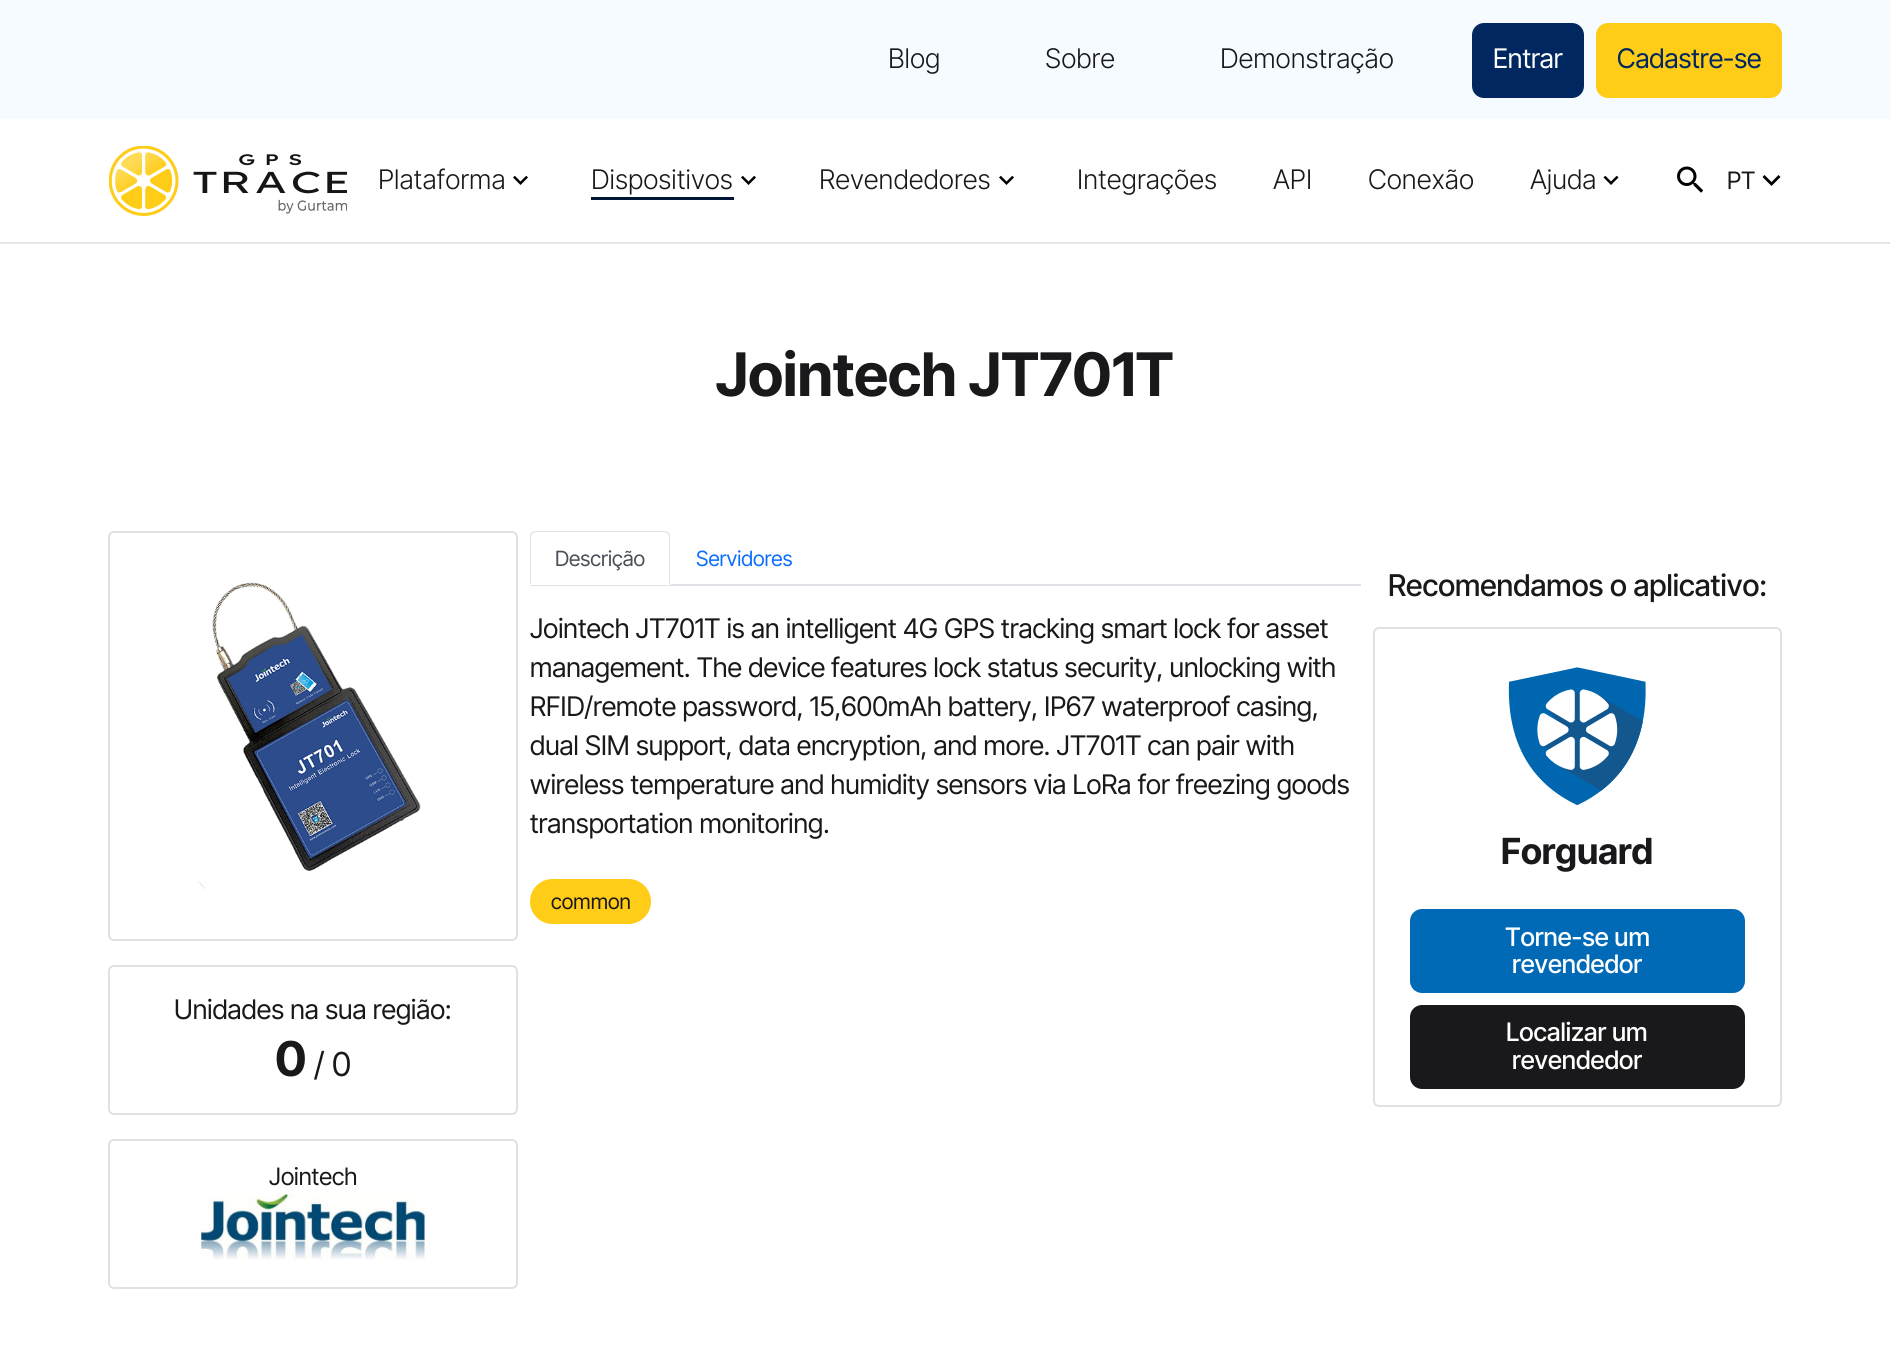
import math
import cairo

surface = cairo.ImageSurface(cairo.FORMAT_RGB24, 1890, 1351)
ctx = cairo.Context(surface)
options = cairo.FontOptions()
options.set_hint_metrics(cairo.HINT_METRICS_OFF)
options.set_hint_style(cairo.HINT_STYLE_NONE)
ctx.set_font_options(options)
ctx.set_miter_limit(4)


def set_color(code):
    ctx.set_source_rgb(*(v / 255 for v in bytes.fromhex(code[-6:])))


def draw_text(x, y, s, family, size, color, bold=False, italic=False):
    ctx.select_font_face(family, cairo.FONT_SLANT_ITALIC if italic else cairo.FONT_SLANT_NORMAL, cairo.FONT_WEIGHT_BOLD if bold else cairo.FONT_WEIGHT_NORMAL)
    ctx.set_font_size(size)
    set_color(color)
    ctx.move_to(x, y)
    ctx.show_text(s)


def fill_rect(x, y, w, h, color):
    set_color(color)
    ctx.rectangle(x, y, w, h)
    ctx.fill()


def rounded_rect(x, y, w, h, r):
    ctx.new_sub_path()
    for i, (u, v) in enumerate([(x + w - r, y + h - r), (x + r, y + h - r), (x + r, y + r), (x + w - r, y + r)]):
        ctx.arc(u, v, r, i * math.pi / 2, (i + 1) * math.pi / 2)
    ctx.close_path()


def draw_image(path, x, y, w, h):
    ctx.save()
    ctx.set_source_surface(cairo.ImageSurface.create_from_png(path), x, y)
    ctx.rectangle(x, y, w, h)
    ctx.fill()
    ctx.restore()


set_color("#ffffff")
ctx.paint()
fill_rect(0, 0, 1890, 119, "#f5fbff")
draw_text(888, 68, "Blog", "Inter Tight Light", 27, "#19191c")
draw_text(1045, 68, "Sobre", "Inter Tight Light", 27, "#19191c")
draw_text(1220, 68, "Demonstração", "Inter Tight Light", 27, "#19191c")
set_color("#00275f")
rounded_rect(1472, 23, 112, 75, 12)
ctx.fill()
draw_text(1493, 68, "Entrar", "Inter Tight", 27, "#ffffff")
set_color("#ffcc17")
rounded_rect(1596, 23, 186, 75, 12)
ctx.fill()
draw_text(1617, 68, "Cadastre-se", "Inter Tight", 27, "#00275f")
fill_rect(0, 242, 1890, 2, "#e6e6e6")
draw_image("assets/img1.png", 109, 146, 238, 70)
draw_text(378, 189, "Plataforma", "Inter Tight Light", 27, "#19191c")
draw_image("assets/img2.png", 513, 175, 15, 10)
draw_text(591, 189, "Dispositivos", "Inter Tight Light", 27, "#19191c")
draw_image("assets/img2.png", 741, 175, 15, 10)
fill_rect(591, 197, 143, 3, "#011634")
draw_text(819, 189, "Revendedores", "Inter Tight Light", 27, "#19191c")
draw_image("assets/img2.png", 999, 175, 15, 10)
draw_text(1077, 189, "Integrações", "Inter Tight Light", 27, "#19191c")
draw_text(1273, 189, "API", "Inter Tight Light", 27, "#19191c")
draw_text(1368, 189, "Conexão", "Inter Tight Light", 27, "#19191c")
draw_text(1530, 189, "Ajuda", "Inter Tight Light", 27, "#19191c")
draw_image("assets/img3.png", 1603, 175, 16, 10)
draw_image("assets/img4.png", 1677, 166, 27, 27)
draw_text(1727, 189, "PT", "Inter Tight", 24, "#19191c")
set_color("#000000")
ctx.new_path()
ctx.move_to(1764.5, 175)
ctx.line_to(1771.5, 182)
ctx.line_to(1778.5, 175)
ctx.line_to(1780.5, 177)
ctx.line_to(1771.5, 186)
ctx.line_to(1762.5, 177)
ctx.close_path()
ctx.fill()
draw_text(716, 396, "Jointech JT701T", "Inter Tight", 60, "#19191c", bold=True)
fill_rect(530, 584, 831, 2, "#dee2e6")
set_color("#ffffff")
ctx.new_path()
ctx.move_to(536, 531)
ctx.line_to(665, 531)
ctx.curve_to(668.5, 531, 671, 533.5, 671, 537)
ctx.line_to(671, 585)
ctx.line_to(530, 585)
ctx.line_to(530, 537)
ctx.curve_to(530, 533.5, 532.5, 531, 536, 531)
ctx.close_path()
ctx.fill()
set_color("#dee2e6")
ctx.new_path()
ctx.move_to(536, 531)
ctx.curve_to(534, 531, 532, 532, 531, 533)
ctx.line_to(532, 534)
ctx.line_to(535, 532)
ctx.line_to(665, 532)
ctx.line_to(668, 534)
ctx.line_to(669, 533)
ctx.curve_to(668, 532, 666, 531, 664, 531)
ctx.close_path()
ctx.fill()
ctx.new_path()
ctx.move_to(669, 533)
ctx.curve_to(670, 534, 670, 536, 670, 537)
ctx.line_to(670, 584)
ctx.line_to(669, 584)
ctx.line_to(669, 537)
ctx.curve_to(669, 536, 669, 535, 668, 534)
ctx.close_path()
ctx.fill()
ctx.new_path()
ctx.move_to(531, 533)
ctx.curve_to(530, 534, 530, 536, 530, 537)
ctx.line_to(530, 584)
ctx.line_to(531, 584)
ctx.line_to(531, 537)
ctx.curve_to(531, 536, 531, 535, 532, 534)
ctx.close_path()
ctx.fill()
draw_text(555, 566, "Descrição", "Inter Tight", 21, "#495057")
draw_text(696, 566, "Servidores", "Inter Tight", 21, "#0d6efd")
draw_text(530, 638, "Jointech JT701T is an intelligent 4G GPS tracking smart lock for asset", "Inter Tight", 27, "#19191c")
draw_text(530, 677, "management. The device features lock status security, unlocking with", "Inter Tight", 27, "#19191c")
draw_text(530, 716, "RFID/remote password, 15,600mAh battery, IP67 waterproof casing,", "Inter Tight", 27, "#19191c")
draw_text(530, 755, "dual SIM support, data encryption, and more. JT701T can pair with", "Inter Tight", 27, "#19191c")
draw_text(530, 794, "wireless temperature and humidity sensors via LoRa for freezing goods", "Inter Tight", 27, "#19191c")
draw_text(530, 833, "transportation monitoring.", "Inter Tight", 27, "#19191c")
set_color("#ffcc17")
rounded_rect(530, 879, 121, 45, 22.5)
ctx.fill()
draw_text(551, 909, "common", "Inter Tight", 21, "#19191c")
draw_text(1388, 596, "Recomendamos o aplicativo:", "Inter Tight Medium", 30, "#19191c")
rounded_rect(1374, 628, 407, 478, 5)
set_color("#e1e1e1")
ctx.stroke()
draw_image("assets/img5.png", 1508, 667, 138, 139)
draw_text(1501, 864, "Forguard", "Inter Tight", 36, "#19191c", bold=True)
set_color("#006ab7")
rounded_rect(1410, 909, 335, 84, 12)
ctx.fill()
draw_text(1505, 946, "Torne-se um", "Inter Tight Medium", 25.5, "#ffffff")
draw_text(1512, 973, "revendedor", "Inter Tight Medium", 25.5, "#ffffff")
set_color("#19191c")
rounded_rect(1410, 1005, 335, 84, 12)
ctx.fill()
draw_text(1506, 1041, "Localizar um", "Inter Tight Medium", 25.5, "#ffffff")
draw_text(1512, 1069, "revendedor", "Inter Tight Medium", 25.5, "#ffffff")
rounded_rect(109, 532, 408, 408, 5)
set_color("#e1e1e1")
ctx.stroke()
draw_image("assets/img6.png", 198, 582, 223, 307)
rounded_rect(109, 966, 408, 148, 5)
ctx.stroke()
draw_text(174, 1019, "Unidades na sua região:", "Inter Tight", 27, "#19191c")
draw_text(275, 1076, "0", "Inter Tight", 48, "#19191c", bold=True)
draw_text(314, 1076, "/ 0", "Inter Tight", 33, "#19191c")
rounded_rect(109, 1140, 408, 148, 5)
set_color("#e1e1e1")
ctx.stroke()
draw_text(269, 1185, "Jointech", "Inter Tight", 24, "#19191c")
draw_image("assets/img7.png", 201, 1194, 224, 66)
surface.write_to_png("output.png")
